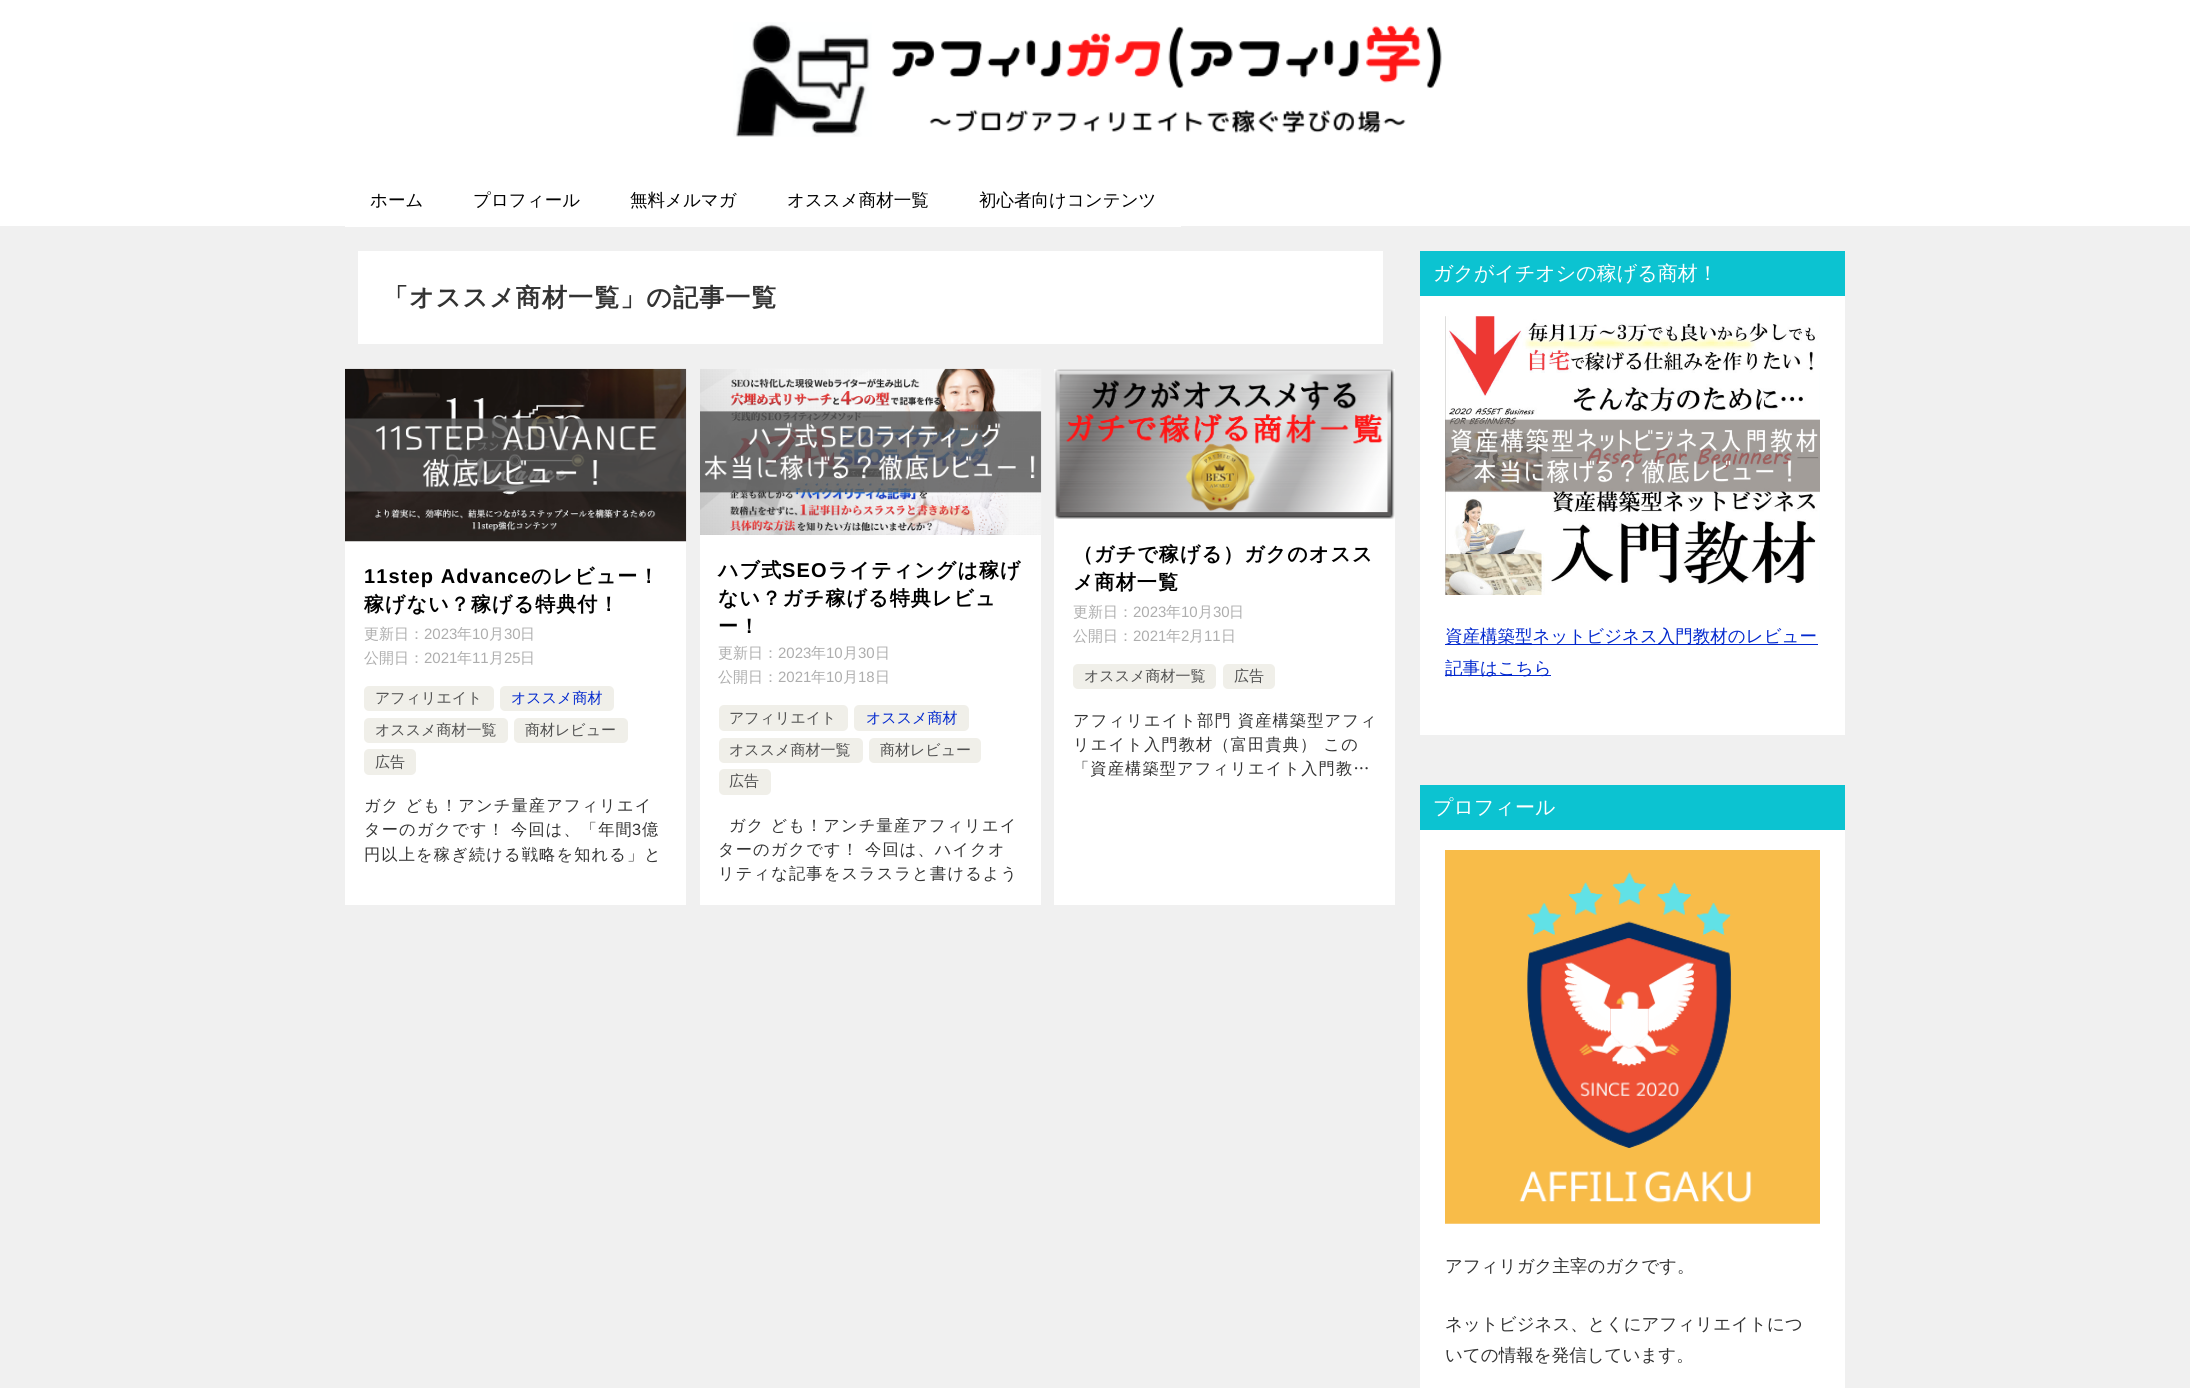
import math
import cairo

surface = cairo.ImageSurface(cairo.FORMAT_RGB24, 2190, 1388)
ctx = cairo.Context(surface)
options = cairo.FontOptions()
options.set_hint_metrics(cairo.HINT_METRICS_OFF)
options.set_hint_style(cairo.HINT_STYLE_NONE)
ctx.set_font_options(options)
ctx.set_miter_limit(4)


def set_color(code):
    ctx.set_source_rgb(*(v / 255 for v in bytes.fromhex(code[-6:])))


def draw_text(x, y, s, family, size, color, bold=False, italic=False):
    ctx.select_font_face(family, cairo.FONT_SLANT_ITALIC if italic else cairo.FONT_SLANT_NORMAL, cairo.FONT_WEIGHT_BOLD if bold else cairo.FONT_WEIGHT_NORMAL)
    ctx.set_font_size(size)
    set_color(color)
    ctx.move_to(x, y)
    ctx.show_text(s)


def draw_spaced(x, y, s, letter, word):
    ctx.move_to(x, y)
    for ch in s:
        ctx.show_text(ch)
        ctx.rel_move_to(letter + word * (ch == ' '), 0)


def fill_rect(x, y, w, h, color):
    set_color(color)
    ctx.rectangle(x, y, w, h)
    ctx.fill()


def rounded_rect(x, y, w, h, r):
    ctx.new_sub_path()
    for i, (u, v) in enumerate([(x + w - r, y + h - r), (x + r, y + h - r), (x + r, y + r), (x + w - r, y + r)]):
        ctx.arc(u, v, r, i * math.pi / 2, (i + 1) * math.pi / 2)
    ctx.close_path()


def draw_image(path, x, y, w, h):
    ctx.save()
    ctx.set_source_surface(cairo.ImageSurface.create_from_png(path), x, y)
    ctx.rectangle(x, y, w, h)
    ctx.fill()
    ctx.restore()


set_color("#f0f0f0")
ctx.paint()
fill_rect(0, 0, 2190, 226, "#ffffff")
draw_image("assets/img1.png", 733, 22, 709, 115)
fill_rect(345, 226, 836, 1, "#ffffff")
draw_text(370, 206, "ホーム", "WenQuanYi Zen Hei Medium", 17.5, "#000000")
draw_text(473, 206, "プロフィール", "WenQuanYi Zen Hei Medium", 17.5, "#000000")
draw_text(630, 206, "無料メルマガ", "WenQuanYi Zen Hei Medium", 17.5, "#000000")
draw_text(787, 206, "オススメ商材一覧", "WenQuanYi Zen Hei Medium", 17.5, "#000000")
draw_text(979, 206, "初心者向けコンテンツ", "WenQuanYi Zen Hei Medium", 17.5, "#000000")
fill_rect(358, 251, 1025, 93, "#ffffff")
ctx.select_font_face("WenQuanYi Zen Hei", cairo.FONT_SLANT_NORMAL, cairo.FONT_WEIGHT_BOLD)
ctx.set_font_size(25)
set_color("#333333")
draw_spaced(383, 306, "「オススメ商材一覧」の記事一覧", 1.1, 0)
fill_rect(345, 541, 341, 364, "#ffffff")
draw_image("assets/img2.png", 345, 368, 342, 174)
ctx.select_font_face("Liberation Sans", cairo.FONT_SLANT_NORMAL, cairo.FONT_WEIGHT_BOLD)
ctx.set_font_size(20)
set_color("#000000")
draw_spaced(364, 583, "11step Advance", 1.1, 0)
ctx.select_font_face("WenQuanYi Zen Hei", cairo.FONT_SLANT_NORMAL, cairo.FONT_WEIGHT_BOLD)
draw_spaced(531, 583, "のレビュー！", 1.1, 0)
draw_spaced(364, 611, "稼げない？稼げる特典付！", 1.1, 0)
draw_text(364, 639, "更新日：", "WenQuanYi Zen Hei Medium", 15, "#adadad")
draw_text(424, 639, "2023", "Liberation Sans", 15, "#adadad")
draw_text(457, 639, "年", "WenQuanYi Zen Hei Medium", 15, "#adadad")
draw_text(472, 639, "10", "Liberation Sans", 15, "#adadad")
draw_text(489, 639, "月", "WenQuanYi Zen Hei Medium", 15, "#adadad")
draw_text(504, 639, "30", "Liberation Sans", 15, "#adadad")
draw_text(520, 639, "日", "WenQuanYi Zen Hei Medium", 15, "#adadad")
draw_text(364, 663, "公開日：", "WenQuanYi Zen Hei Medium", 15, "#adadad")
draw_text(424, 663, "2021", "Liberation Sans", 15, "#adadad")
draw_text(457, 663, "年", "WenQuanYi Zen Hei Medium", 15, "#adadad")
draw_text(472, 663, "11", "Liberation Sans", 15, "#adadad")
draw_text(489, 663, "月", "WenQuanYi Zen Hei Medium", 15, "#adadad")
draw_text(504, 663, "25", "Liberation Sans", 15, "#adadad")
draw_text(520, 663, "日", "WenQuanYi Zen Hei Medium", 15, "#adadad")
set_color("#f0efe9")
rounded_rect(364, 686, 130, 25, 5)
ctx.fill()
draw_text(375, 703, "アフィリエイト", "WenQuanYi Zen Hei Medium", 15, "#505050")
set_color("#f0efe9")
rounded_rect(500, 686, 114, 25, 5)
ctx.fill()
draw_text(511, 703, "オススメ商材", "WenQuanYi Zen Hei Medium", 15, "#0329ce")
set_color("#f0efe9")
rounded_rect(364, 718, 144, 25, 5)
ctx.fill()
draw_text(375, 735, "オススメ商材一覧", "WenQuanYi Zen Hei Medium", 15, "#505050")
set_color("#f0efe9")
rounded_rect(514, 718, 114, 25, 5)
ctx.fill()
draw_text(525, 735, "商材レビュー", "WenQuanYi Zen Hei Medium", 15, "#505050")
set_color("#f0efe9")
rounded_rect(364, 749, 52, 26, 5)
ctx.fill()
draw_text(375, 767, "広告", "WenQuanYi Zen Hei Medium", 15, "#505050")
ctx.set_font_size(16.25)
set_color("#333333")
draw_spaced(364, 811, "ガク ども！アンチ量産アフィリエイ", 1.1, 0)
draw_spaced(364, 835, "ターのガクです！ 今回は、「年間", 1.1, 0)
ctx.select_font_face("Liberation Sans")
draw_spaced(632, 835, "3", 1.1, 0)
ctx.select_font_face("WenQuanYi Zen Hei Medium")
draw_spaced(642, 835, "億", 1.1, 0)
draw_spaced(364, 860, "円以上を稼ぎ続ける戦略を知れる」と", 1.1, 0)
fill_rect(700, 535, 341, 370, "#ffffff")
draw_image("assets/img3.png", 700, 368, 342, 167)
ctx.select_font_face("WenQuanYi Zen Hei", cairo.FONT_SLANT_NORMAL, cairo.FONT_WEIGHT_BOLD)
ctx.set_font_size(20)
set_color("#000000")
draw_spaced(718, 577, "ハブ式", 1.1, 0)
ctx.select_font_face("Liberation Sans", cairo.FONT_SLANT_NORMAL, cairo.FONT_WEIGHT_BOLD)
draw_spaced(782, 577, "SEO", 1.1, 0)
ctx.select_font_face("WenQuanYi Zen Hei", cairo.FONT_SLANT_NORMAL, cairo.FONT_WEIGHT_BOLD)
draw_spaced(828, 577, "ライティングは稼げ", 1.1, 0)
draw_spaced(718, 605, "ない？ガチ稼げる特典レビュ", 1.1, 0)
draw_spaced(718, 633, "ー！", 1.1, 0)
draw_text(718, 658, "更新日：", "WenQuanYi Zen Hei Medium", 15, "#adadad")
draw_text(778, 658, "2023", "Liberation Sans", 15, "#adadad")
draw_text(811, 658, "年", "WenQuanYi Zen Hei Medium", 15, "#adadad")
draw_text(826, 658, "10", "Liberation Sans", 15, "#adadad")
draw_text(843, 658, "月", "WenQuanYi Zen Hei Medium", 15, "#adadad")
draw_text(858, 658, "30", "Liberation Sans", 15, "#adadad")
draw_text(875, 658, "日", "WenQuanYi Zen Hei Medium", 15, "#adadad")
draw_text(718, 682, "公開日：", "WenQuanYi Zen Hei Medium", 15, "#adadad")
draw_text(778, 682, "2021", "Liberation Sans", 15, "#adadad")
draw_text(811, 682, "年", "WenQuanYi Zen Hei Medium", 15, "#adadad")
draw_text(826, 682, "10", "Liberation Sans", 15, "#adadad")
draw_text(843, 682, "月", "WenQuanYi Zen Hei Medium", 15, "#adadad")
draw_text(858, 682, "18", "Liberation Sans", 15, "#adadad")
draw_text(875, 682, "日", "WenQuanYi Zen Hei Medium", 15, "#adadad")
set_color("#f0efe9")
rounded_rect(719, 705, 129, 26, 5)
ctx.fill()
draw_text(729, 723, "アフィリエイト", "WenQuanYi Zen Hei Medium", 15, "#505050")
set_color("#f0efe9")
rounded_rect(854, 705, 115, 26, 5)
ctx.fill()
draw_text(866, 723, "オススメ商材", "WenQuanYi Zen Hei Medium", 15, "#0329ce")
set_color("#f0efe9")
rounded_rect(719, 738, 144, 25, 5)
ctx.fill()
draw_text(729, 755, "オススメ商材一覧", "WenQuanYi Zen Hei Medium", 15, "#505050")
set_color("#f0efe9")
rounded_rect(869, 738, 112, 25, 5)
ctx.fill()
draw_text(880, 755, "商材レビュー", "WenQuanYi Zen Hei Medium", 15, "#505050")
set_color("#f0efe9")
rounded_rect(719, 769, 52, 26, 5)
ctx.fill()
draw_text(729, 786, "広告", "WenQuanYi Zen Hei Medium", 15, "#505050")
ctx.set_font_size(16.25)
set_color("#333333")
draw_spaced(729, 831, "ガク ども！アンチ量産アフィリエイ", 1.1, 0)
draw_spaced(718, 855, "ターのガクです！ 今回は、ハイクオ", 1.1, 0)
draw_spaced(718, 879, "リティな記事をスラスラと書けるよう", 1.1, 0)
fill_rect(1054, 518, 341, 387, "#ffffff")
draw_image("assets/img4.png", 1054, 369, 341, 150)
ctx.select_font_face("WenQuanYi Zen Hei", cairo.FONT_SLANT_NORMAL, cairo.FONT_WEIGHT_BOLD)
ctx.set_font_size(20)
set_color("#000000")
draw_spaced(1073, 561, "（ガチで稼げる）ガクのオスス", 1.1, 0)
draw_spaced(1073, 589, "メ商材一覧", 1.1, 0)
draw_text(1073, 617, "更新日：", "WenQuanYi Zen Hei Medium", 15, "#adadad")
draw_text(1133, 617, "2023", "Liberation Sans", 15, "#adadad")
draw_text(1166, 617, "年", "WenQuanYi Zen Hei Medium", 15, "#adadad")
draw_text(1181, 617, "10", "Liberation Sans", 15, "#adadad")
draw_text(1198, 617, "月", "WenQuanYi Zen Hei Medium", 15, "#adadad")
draw_text(1213, 617, "30", "Liberation Sans", 15, "#adadad")
draw_text(1229, 617, "日", "WenQuanYi Zen Hei Medium", 15, "#adadad")
draw_text(1073, 641, "公開日：", "WenQuanYi Zen Hei Medium", 15, "#adadad")
draw_text(1133, 641, "2021", "Liberation Sans", 15, "#adadad")
draw_text(1166, 641, "年", "WenQuanYi Zen Hei Medium", 15, "#adadad")
draw_text(1181, 641, "2", "Liberation Sans", 15, "#adadad")
draw_text(1189, 641, "月", "WenQuanYi Zen Hei Medium", 15, "#adadad")
draw_text(1204, 641, "11", "Liberation Sans", 15, "#adadad")
draw_text(1221, 641, "日", "WenQuanYi Zen Hei Medium", 15, "#adadad")
set_color("#f0efe9")
rounded_rect(1073, 664, 143, 25, 5)
ctx.fill()
draw_text(1084, 681, "オススメ商材一覧", "WenQuanYi Zen Hei Medium", 15, "#505050")
set_color("#f0efe9")
rounded_rect(1223, 664, 52, 25, 5)
ctx.fill()
draw_text(1234, 681, "広告", "WenQuanYi Zen Hei Medium", 15, "#505050")
ctx.set_font_size(16.25)
set_color("#333333")
draw_spaced(1073, 726, "アフィリエイト部門 資産構築型アフィ", 1.1, 0)
draw_spaced(1073, 750, "リエイト入門教材（富田貴典） この", 1.1, 0)
draw_spaced(1073, 774, "「資産構築型アフィリエイト入門教…", 1.1, 0)
fill_rect(1420, 296, 425, 439, "#ffffff")
fill_rect(1420, 251, 425, 45, "#0cc3d1")
draw_text(1433, 280, "ガクがイチオシの稼げる商材！", "WenQuanYi Zen Hei Medium", 20, "#ffffff")
draw_image("assets/img5.png", 1445, 316, 375, 279)
fill_rect(1445, 644, 373, 1, "#0329ce")
draw_text(1445, 642, "資産構築型ネットビジネス入門教材のレビュー", "WenQuanYi Zen Hei Medium", 17.5, "#0329ce")
fill_rect(1445, 675, 106, 1, "#0329ce")
draw_text(1445, 674, "記事はこちら", "WenQuanYi Zen Hei Medium", 17.5, "#0329ce")
fill_rect(1420, 830, 425, 558, "#ffffff")
fill_rect(1420, 785, 425, 45, "#0cc3d1")
draw_text(1433, 814, "プロフィール", "WenQuanYi Zen Hei Medium", 20, "#ffffff")
draw_image("assets/img6.png", 1445, 850, 375, 374)
draw_text(1445, 1272, "アフィリガク主宰のガクです。", "WenQuanYi Zen Hei Medium", 17.5, "#333333")
draw_text(1445, 1330, "ネットビジネス、とくにアフィリエイトにつ", "WenQuanYi Zen Hei Medium", 17.5, "#333333")
draw_text(1445, 1361, "いての情報を発信しています。", "WenQuanYi Zen Hei Medium", 17.5, "#333333")
surface.write_to_png("output.png")
